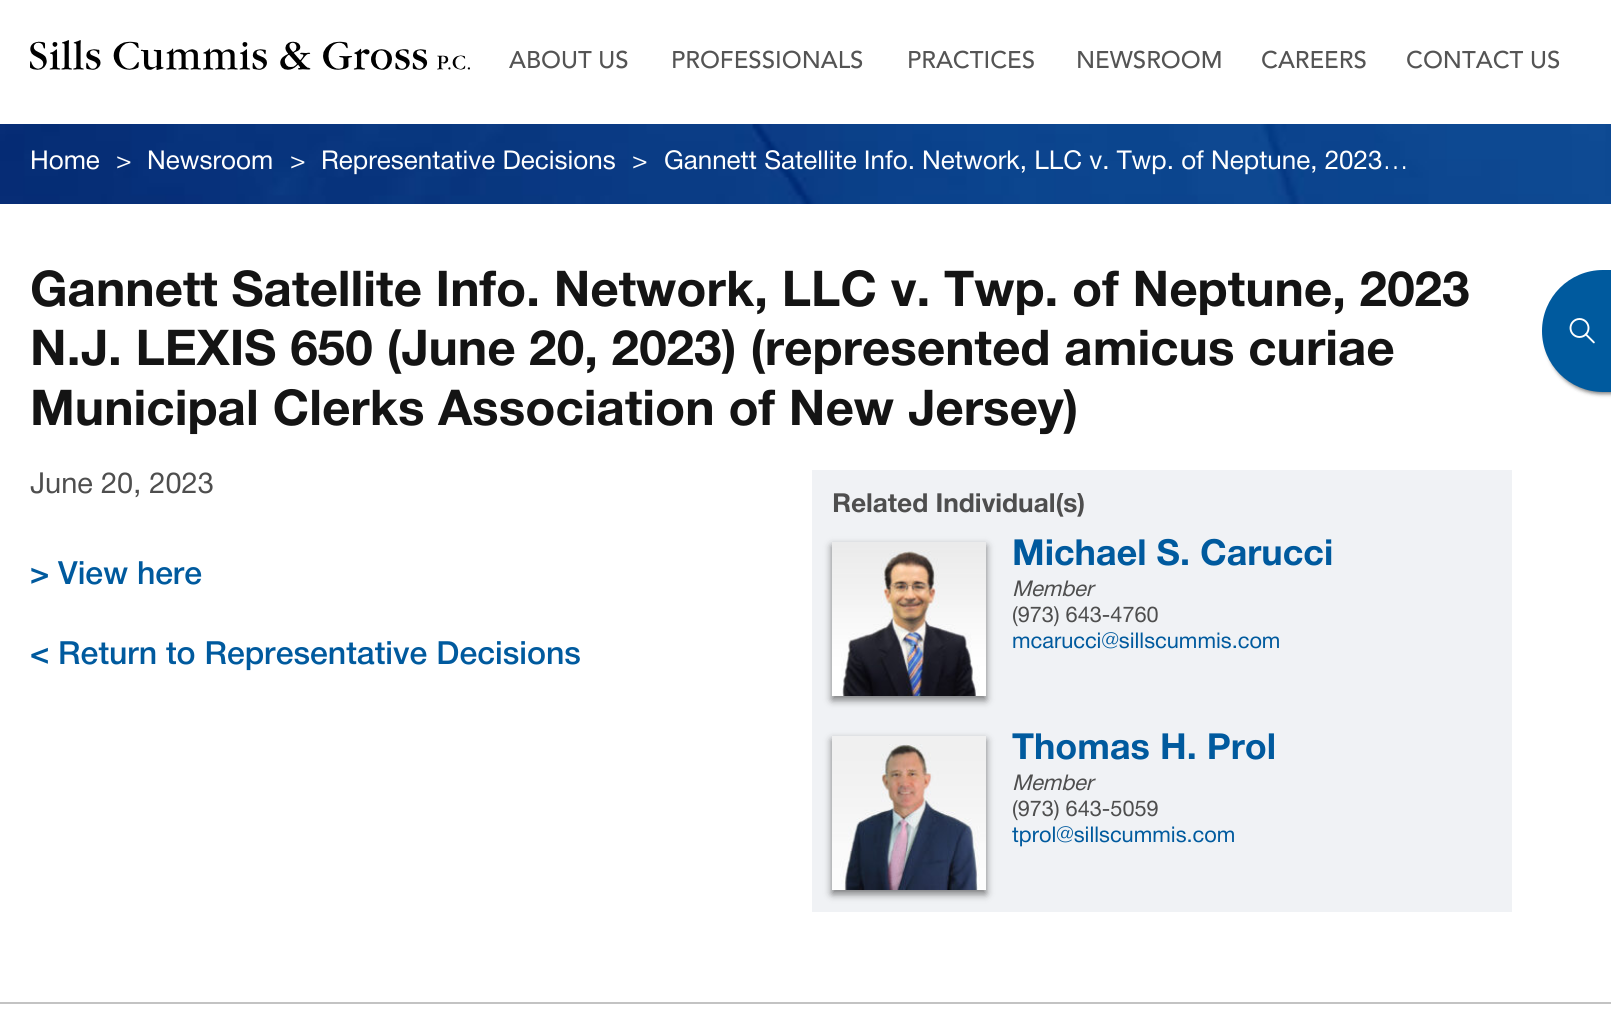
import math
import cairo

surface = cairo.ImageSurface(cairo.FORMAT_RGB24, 1611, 1031)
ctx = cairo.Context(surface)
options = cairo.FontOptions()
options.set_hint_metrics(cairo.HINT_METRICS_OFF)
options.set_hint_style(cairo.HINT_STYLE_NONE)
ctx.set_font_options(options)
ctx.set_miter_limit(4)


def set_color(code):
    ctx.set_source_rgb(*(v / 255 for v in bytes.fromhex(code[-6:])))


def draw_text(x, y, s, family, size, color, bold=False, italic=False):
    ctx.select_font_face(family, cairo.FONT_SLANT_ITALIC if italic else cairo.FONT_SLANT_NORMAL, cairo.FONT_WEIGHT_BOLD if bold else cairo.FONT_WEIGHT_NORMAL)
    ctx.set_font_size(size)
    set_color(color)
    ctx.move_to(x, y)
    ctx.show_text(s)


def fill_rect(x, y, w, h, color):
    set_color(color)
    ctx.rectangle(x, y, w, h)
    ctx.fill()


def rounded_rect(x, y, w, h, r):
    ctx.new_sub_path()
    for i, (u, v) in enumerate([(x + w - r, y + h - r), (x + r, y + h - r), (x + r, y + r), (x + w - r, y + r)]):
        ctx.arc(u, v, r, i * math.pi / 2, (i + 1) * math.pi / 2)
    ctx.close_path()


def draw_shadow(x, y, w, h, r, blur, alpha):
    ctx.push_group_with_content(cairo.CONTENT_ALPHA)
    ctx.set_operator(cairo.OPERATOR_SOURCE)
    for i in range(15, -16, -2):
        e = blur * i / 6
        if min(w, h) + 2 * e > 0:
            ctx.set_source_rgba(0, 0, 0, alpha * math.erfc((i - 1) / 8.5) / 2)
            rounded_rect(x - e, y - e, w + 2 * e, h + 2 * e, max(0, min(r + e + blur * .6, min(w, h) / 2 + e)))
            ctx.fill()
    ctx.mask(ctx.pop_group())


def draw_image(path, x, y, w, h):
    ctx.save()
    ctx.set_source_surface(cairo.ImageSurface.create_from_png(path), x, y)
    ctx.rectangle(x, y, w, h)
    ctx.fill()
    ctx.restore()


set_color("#ffffff")
ctx.paint()
draw_image("assets/img1.png", 30, 40, 440, 30)
draw_text(509, 68, "ABOUT US", "Avenir Medium", 24, "#545454")
draw_text(671, 68, "PROFESSIONALS", "Avenir Medium", 24, "#545454")
draw_text(907, 68, "PRACTICES", "Avenir Medium", 24, "#545454")
draw_text(1076, 68, "NEWSROOM", "Avenir Medium", 24, "#545454")
draw_text(1261, 68, "CAREERS", "Avenir Medium", 24, "#545454")
draw_text(1406, 68, "CONTACT US", "Avenir Medium", 24, "#545454")
draw_image("assets/img2.png", 0, 124, 1611, 80)
draw_text(30, 169, "Home", "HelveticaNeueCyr", 26, "#ffffff")
draw_text(116, 169, ">", "HelveticaNeueCyr", 26, "#ffffff")
draw_text(147, 169, "Newsroom", "HelveticaNeueCyr", 26, "#ffffff")
draw_text(290, 169, ">", "HelveticaNeueCyr", 26, "#ffffff")
draw_text(321, 169, "Representative Decisions", "HelveticaNeueCyr", 26, "#ffffff")
draw_text(632, 169, ">", "HelveticaNeueCyr", 26, "#ffffff")
draw_text(664, 169, "Gannett Satellite Info. Network, LLC v. Twp. of Neptune, 2023…", "HelveticaNeueCyr", 26, "#ffffff")
draw_text(30, 306, "Gannett Satellite Info. Network, LLC v. Twp. of Neptune, 2023", "HelveticaNeueCyr", 49.45, "#141414", bold=True)
draw_text(30, 365, "N.J. LEXIS 650 (June 20, 2023) (represented amicus curiae", "HelveticaNeueCyr", 49.45, "#141414", bold=True)
draw_text(30, 425, "Municipal Clerks Association of New Jersey)", "HelveticaNeueCyr", 49.45, "#141414", bold=True)
draw_text(30, 493, "June 20, 2023", "HelveticaNeueCyr", 29, "#4e4e4e")
draw_text(30, 584, "> View here", "HelveticaNeueCyr Medium", 32, "#005a9e")
draw_text(30, 664, "< Return to Representative Decisions", "HelveticaNeueCyr Medium", 32, "#005a9e")
fill_rect(812, 470, 700, 442, "#f0f2f5")
draw_text(832, 512, "Related Individual(s)", "HelveticaNeueCyr", 26.25, "#4e4e4e", bold=True)
set_color("#000000")
draw_shadow(832, 546, 154, 154, 0, 4, 0.5)
draw_image("assets/img3.png", 832, 542, 154, 154)
draw_text(1012, 565, "Michael S. Carucci", "HelveticaNeueCyr", 36, "#005a9e", bold=True)
draw_text(1012, 596, "Member", "HelveticaNeueCyr", 21.75, "#4e4e4e", italic=True)
draw_text(1012, 622, "(973) 643-4760", "HelveticaNeueCyr", 21.75, "#4e4e4e")
draw_text(1012, 648, "mcarucci@sillscummis.com", "HelveticaNeueCyr", 21.75, "#005a9e")
set_color("#000000")
draw_shadow(832, 740, 154, 154, 0, 4, 0.5)
draw_image("assets/img4.png", 832, 736, 154, 154)
draw_text(1012, 759, "Thomas H. Prol", "HelveticaNeueCyr", 36, "#005a9e", bold=True)
draw_text(1012, 790, "Member", "HelveticaNeueCyr", 21.75, "#4e4e4e", italic=True)
draw_text(1012, 816, "(973) 643-5059", "HelveticaNeueCyr", 21.75, "#4e4e4e")
draw_text(1012, 842, "tprol@sillscummis.com", "HelveticaNeueCyr", 21.75, "#005a9e")
set_color("#000000")
draw_shadow(1546, 280, 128, 114, 57, 2, 0.5)
set_color("#005a9e")
rounded_rect(1542, 270, 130, 122, 61)
ctx.fill()
draw_image("assets/img5.png", 1569, 318, 26, 26)
fill_rect(0, 1002, 1611, 2, "#c3c3c3")
surface.write_to_png("output.png")
